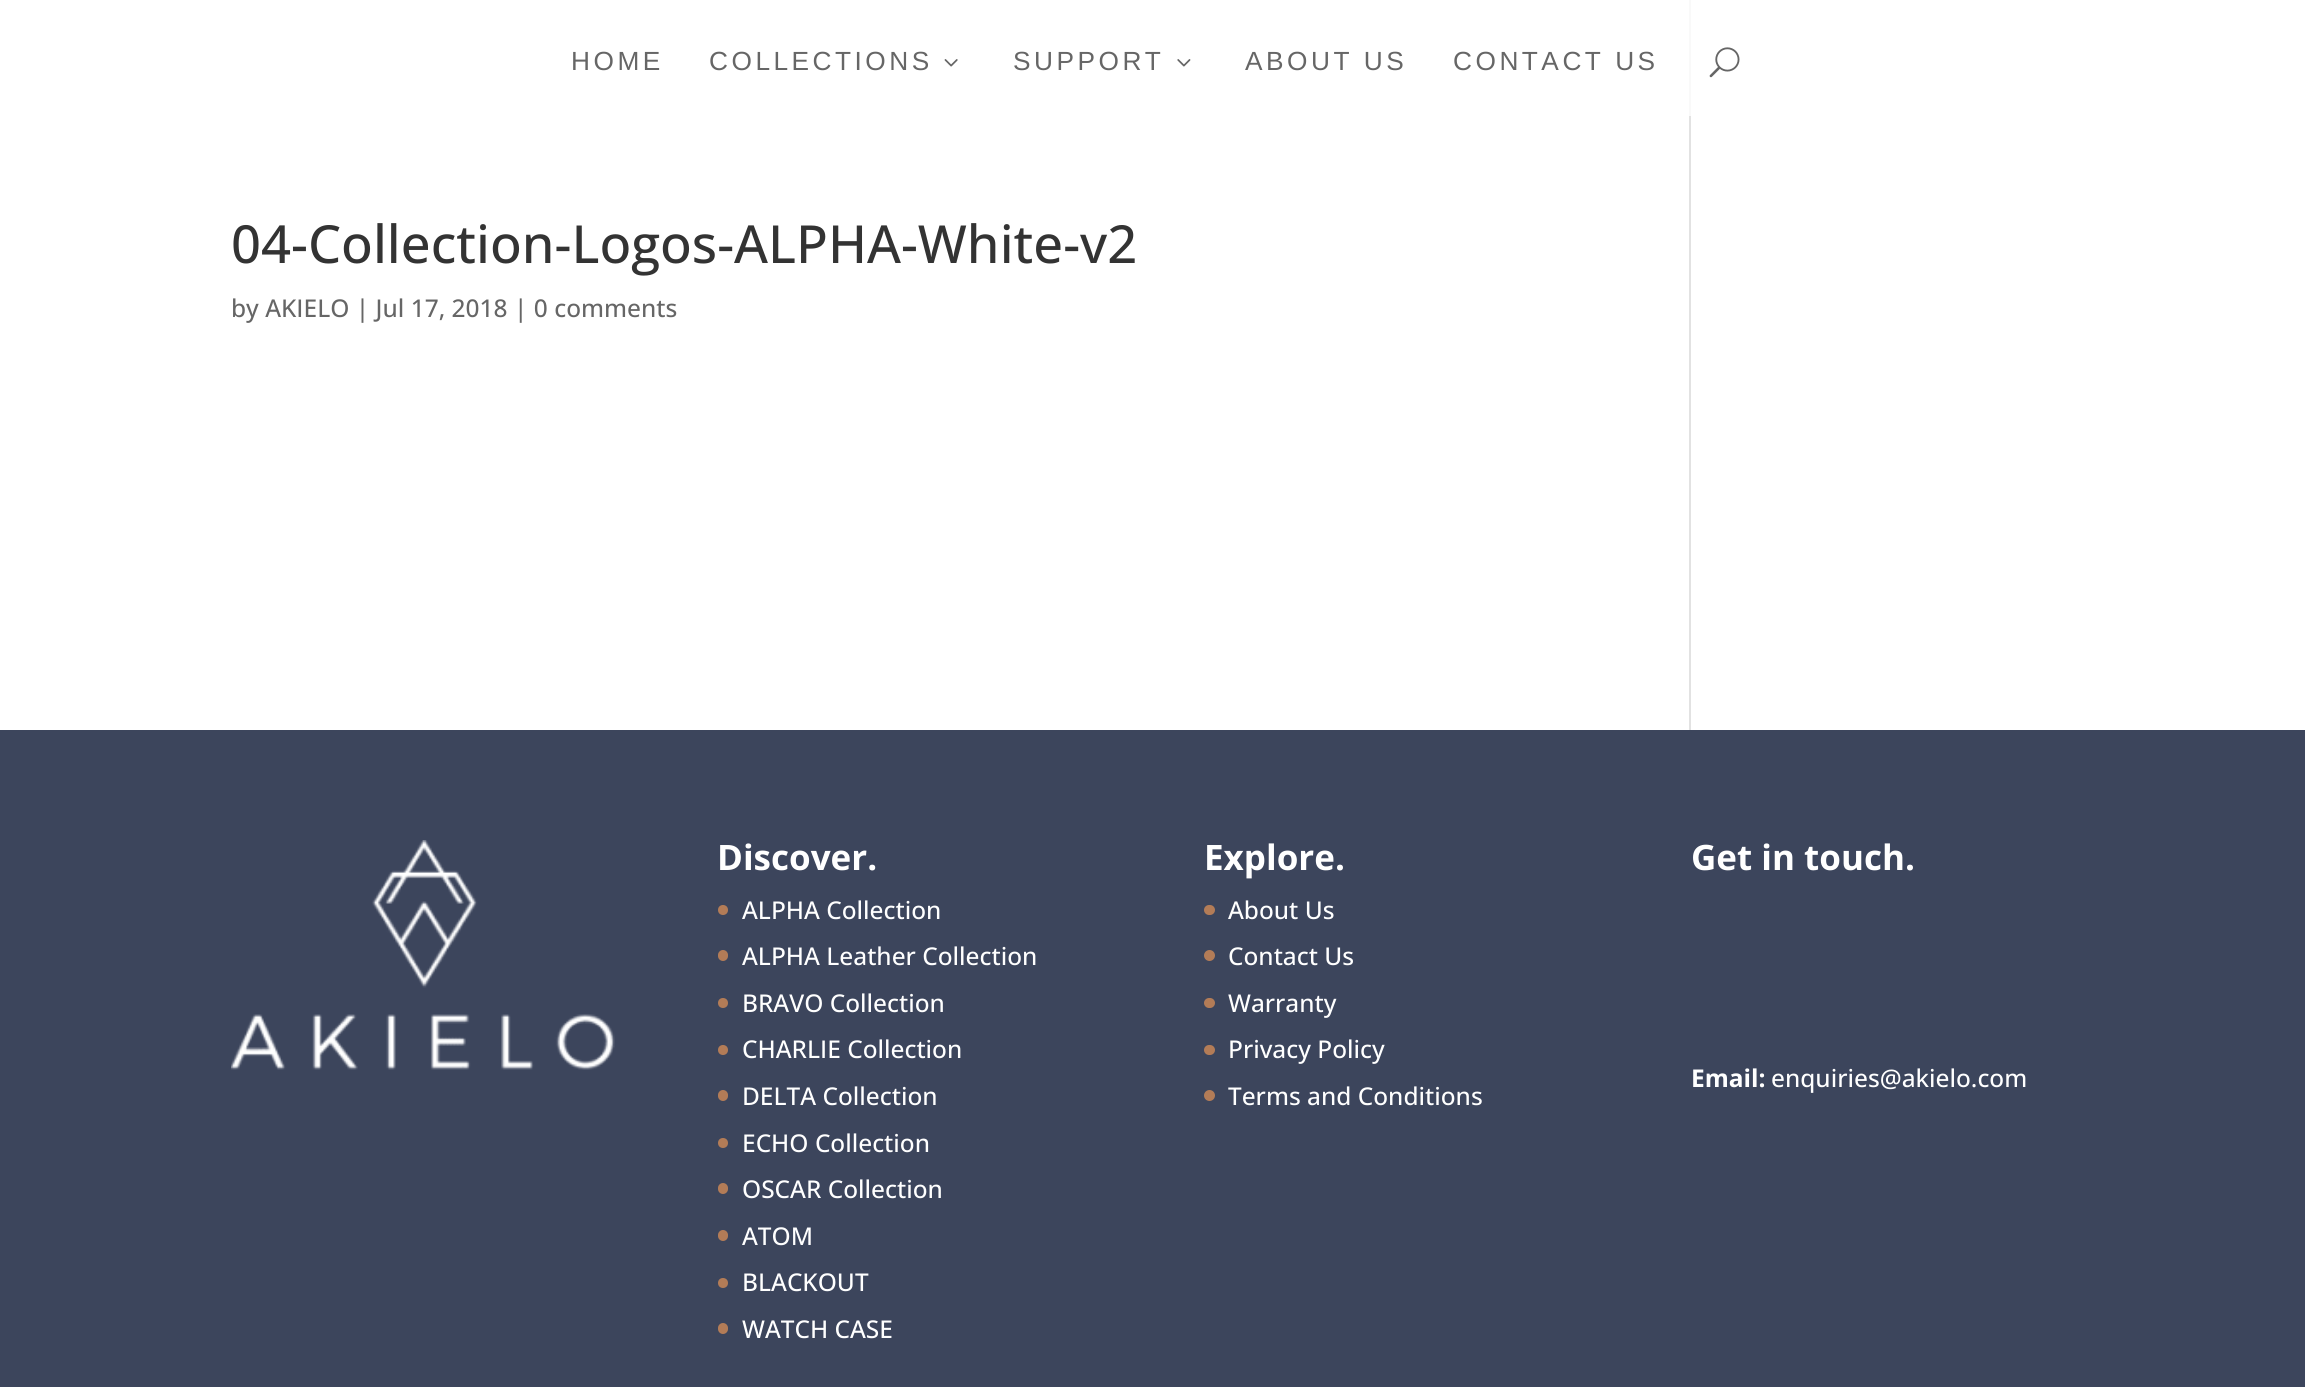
import math
import cairo

surface = cairo.ImageSurface(cairo.FORMAT_RGB24, 2305, 1387)
ctx = cairo.Context(surface)
options = cairo.FontOptions()
options.set_hint_metrics(cairo.HINT_METRICS_OFF)
options.set_hint_style(cairo.HINT_STYLE_NONE)
ctx.set_font_options(options)
ctx.set_miter_limit(4)


def set_color(code):
    ctx.set_source_rgb(*(v / 255 for v in bytes.fromhex(code[-6:])))


def draw_text(x, y, s, family, size, color, bold=False, italic=False):
    ctx.select_font_face(family, cairo.FONT_SLANT_ITALIC if italic else cairo.FONT_SLANT_NORMAL, cairo.FONT_WEIGHT_BOLD if bold else cairo.FONT_WEIGHT_NORMAL)
    ctx.set_font_size(size)
    set_color(color)
    ctx.move_to(x, y)
    ctx.show_text(s)


def draw_spaced(x, y, s, letter, word):
    ctx.move_to(x, y)
    for ch in s:
        ctx.show_text(ch)
        ctx.rel_move_to(letter + word * (ch == ' '), 0)


def fill_rect(x, y, w, h, color):
    set_color(color)
    ctx.rectangle(x, y, w, h)
    ctx.fill()


def rounded_rect(x, y, w, h, r):
    ctx.new_sub_path()
    for i, (u, v) in enumerate([(x + w - r, y + h - r), (x + r, y + h - r), (x + r, y + r), (x + w - r, y + r)]):
        ctx.arc(u, v, r, i * math.pi / 2, (i + 1) * math.pi / 2)
    ctx.close_path()


def draw_image(path, x, y, w, h):
    ctx.save()
    ctx.set_source_surface(cairo.ImageSurface.create_from_png(path), x, y)
    ctx.rectangle(x, y, w, h)
    ctx.fill()
    ctx.restore()


set_color("#ffffff")
ctx.paint()
ctx.select_font_face("Arimo")
ctx.set_font_size(26.25)
set_color("#666666")
draw_spaced(571, 70, "HOME", 3.5, 0)
draw_spaced(709, 70, "COLLECTIONS", 3.5, 0)
draw_image("assets/img1.png", 944, 59, 14, 8)
draw_spaced(1013, 70, "SUPPORT", 3.5, 0)
draw_image("assets/img2.png", 1177, 59, 14, 8)
draw_spaced(1245, 70, "ABOUT US", 3.5, 0)
draw_spaced(1453, 70, "CONTACT US", 3.5, 0)
draw_image("assets/img3.png", 1709, 47, 31, 31)
draw_text(231, 263, "04-Collection-Logos-ALPHA-White-v2", "Open Sans Medium", 52.5, "#333333")
draw_text(231, 317, "by AKIELO | Jul 17, 2018 | 0 comments", "Open Sans Medium", 24.5, "#666666")
fill_rect(1689, 116, 2, 614, "#e2e2e2")
fill_rect(1689, 0, 2, 116, "#f9f9f9")
fill_rect(0, 730, 2305, 657, "#3c455c")
draw_image("assets/img4.png", 231, 840, 384, 230)
draw_text(717, 870, "Discover.", "Open Sans", 35, "#ffffff", bold=True)
set_color("#b37c57")
ctx.new_path()
ctx.arc(723, 910, 5, 0, 2 * math.pi)
ctx.fill()
draw_text(742, 919, "ALPHA Collection", "Open Sans Medium", 24.5, "#ffffff")
set_color("#b37c57")
rounded_rect(718, 950, 10, 11, 5)
ctx.fill()
draw_text(742, 965, "ALPHA Leather Collection", "Open Sans Medium", 24.5, "#ffffff")
set_color("#b37c57")
ctx.new_path()
ctx.arc(723, 1003, 5, 0, 2 * math.pi)
ctx.fill()
draw_text(742, 1012, "BRAVO Collection", "Open Sans Medium", 24.5, "#ffffff")
set_color("#b37c57")
ctx.new_path()
ctx.arc(723, 1050, 5, 0, 2 * math.pi)
ctx.fill()
draw_text(742, 1058, "CHARLIE Collection", "Open Sans Medium", 24.5, "#ffffff")
set_color("#b37c57")
rounded_rect(718, 1090, 10, 11, 5)
ctx.fill()
draw_text(742, 1105, "DELTA Collection", "Open Sans Medium", 24.5, "#ffffff")
set_color("#b37c57")
ctx.new_path()
ctx.arc(723, 1143, 5, 0, 2 * math.pi)
ctx.fill()
draw_text(742, 1152, "ECHO Collection", "Open Sans Medium", 24.5, "#ffffff")
set_color("#b37c57")
rounded_rect(718, 1183, 10, 11, 5)
ctx.fill()
draw_text(742, 1198, "OSCAR Collection", "Open Sans Medium", 24.5, "#ffffff")
set_color("#b37c57")
rounded_rect(718, 1230, 10, 11, 5)
ctx.fill()
draw_text(742, 1245, "ATOM", "Open Sans Medium", 24.5, "#ffffff")
set_color("#b37c57")
ctx.new_path()
ctx.arc(723, 1283, 5, 0, 2 * math.pi)
ctx.fill()
draw_text(742, 1291, "BLACKOUT", "Open Sans Medium", 24.5, "#ffffff")
set_color("#b37c57")
rounded_rect(718, 1323, 10, 11, 5)
ctx.fill()
draw_text(742, 1338, "WATCH CASE", "Open Sans Medium", 24.5, "#ffffff")
draw_text(1204, 870, "Explore.", "Open Sans", 35, "#ffffff", bold=True)
set_color("#b37c57")
rounded_rect(1204, 905, 11, 10, 5)
ctx.fill()
draw_text(1228, 919, "About Us", "Open Sans Medium", 24.5, "#ffffff")
set_color("#b37c57")
ctx.new_path()
ctx.arc(1209.5, 955.5, 5.5, 0, 2 * math.pi)
ctx.fill()
draw_text(1228, 965, "Contact Us", "Open Sans Medium", 24.5, "#ffffff")
set_color("#b37c57")
rounded_rect(1204, 998, 11, 10, 5)
ctx.fill()
draw_text(1228, 1012, "Warranty", "Open Sans Medium", 24.5, "#ffffff")
set_color("#b37c57")
rounded_rect(1204, 1045, 11, 10, 5)
ctx.fill()
draw_text(1228, 1058, "Privacy Policy", "Open Sans Medium", 24.5, "#ffffff")
set_color("#b37c57")
ctx.new_path()
ctx.arc(1209.5, 1095.5, 5.5, 0, 2 * math.pi)
ctx.fill()
draw_text(1228, 1105, "Terms and Conditions", "Open Sans Medium", 24.5, "#ffffff")
draw_text(1691, 870, "Get in touch.", "Open Sans", 35, "#ffffff", bold=True)
draw_text(1691, 1087, "Email:", "Open Sans", 24.5, "#ffffff", bold=True)
draw_text(1771, 1087, "enquiries@akielo.com", "Open Sans Medium", 24.5, "#ffffff")
surface.write_to_png("output.png")
